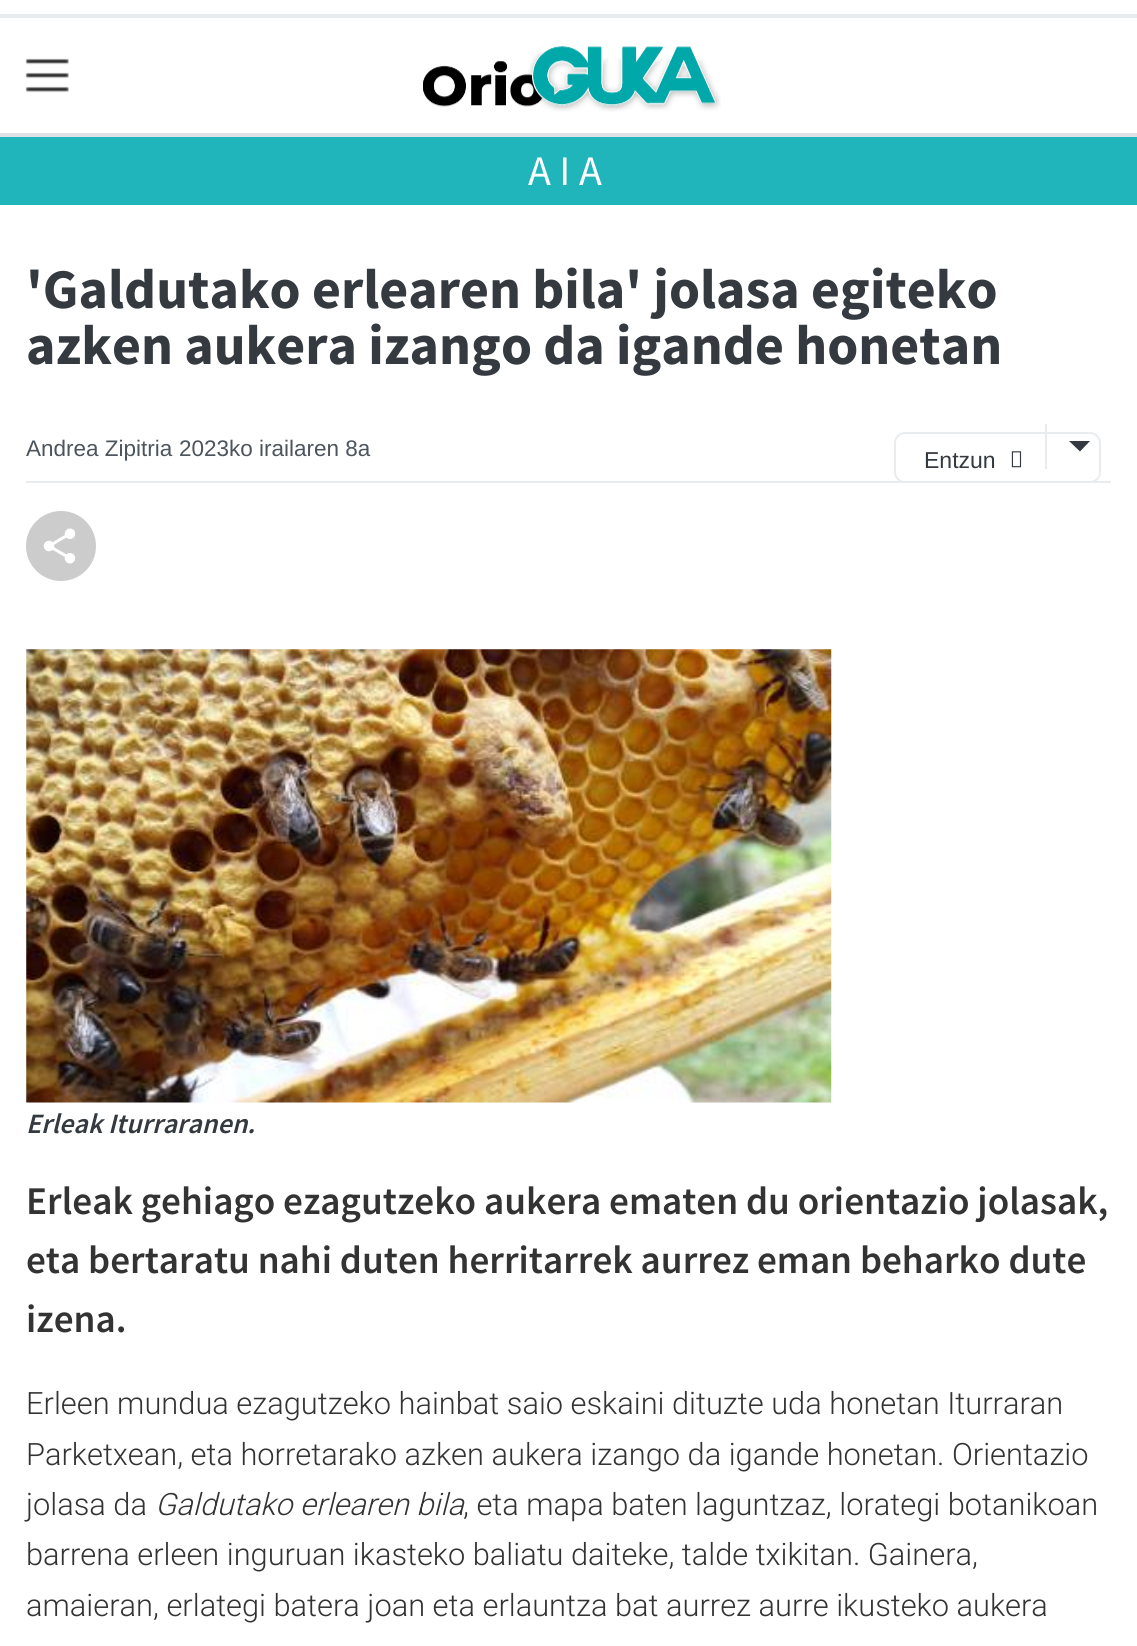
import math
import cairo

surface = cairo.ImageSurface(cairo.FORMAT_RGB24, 1137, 1646)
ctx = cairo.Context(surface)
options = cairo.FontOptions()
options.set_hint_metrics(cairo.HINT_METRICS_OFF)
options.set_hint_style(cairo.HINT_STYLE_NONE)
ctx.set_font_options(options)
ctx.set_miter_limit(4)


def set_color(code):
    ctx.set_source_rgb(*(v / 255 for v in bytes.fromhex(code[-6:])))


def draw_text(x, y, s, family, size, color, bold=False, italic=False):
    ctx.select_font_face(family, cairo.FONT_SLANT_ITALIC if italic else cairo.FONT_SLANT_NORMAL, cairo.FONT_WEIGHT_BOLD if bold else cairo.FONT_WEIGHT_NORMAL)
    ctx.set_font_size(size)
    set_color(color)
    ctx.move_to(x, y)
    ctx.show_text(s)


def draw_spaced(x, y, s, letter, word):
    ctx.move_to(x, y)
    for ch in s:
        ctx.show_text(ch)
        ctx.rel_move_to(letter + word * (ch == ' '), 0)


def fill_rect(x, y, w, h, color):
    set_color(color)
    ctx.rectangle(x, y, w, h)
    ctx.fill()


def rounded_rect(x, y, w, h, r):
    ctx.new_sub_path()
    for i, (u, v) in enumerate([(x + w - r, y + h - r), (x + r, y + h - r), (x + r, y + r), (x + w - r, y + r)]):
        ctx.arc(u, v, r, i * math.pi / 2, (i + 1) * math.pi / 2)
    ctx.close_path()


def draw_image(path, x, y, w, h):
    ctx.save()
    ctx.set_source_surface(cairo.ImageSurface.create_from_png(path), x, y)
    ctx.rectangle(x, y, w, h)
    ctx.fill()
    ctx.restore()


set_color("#ffffff")
ctx.paint()
fill_rect(0, 14, 1137, 4, "#e9ecef")
draw_image("assets/img1.png", 25, 58, 44, 35)
draw_image("assets/img2.png", 423, 46, 298, 66)
fill_rect(0, 133, 1137, 4, "#dee2e6")
fill_rect(0, 137, 1137, 68, "#20b5ba")
ctx.select_font_face("Source Sans Pro")
ctx.set_font_size(42)
set_color("#ffffff")
draw_spaced(528, 185, "AIA", 8.5, 0)
draw_text(26, 308, "'Galdutako erlearen bila' jolasa egiteko", "Source Sans Pro", 56, "#343a40", bold=True)
draw_text(26, 364, "azken aukera izango da igande honetan", "Source Sans Pro", 56, "#343a40", bold=True)
fill_rect(26, 481, 1085, 2, "#e9ecef")
draw_text(26, 456, "Andrea Zipitria", "Liberation Sans", 22.5, "#4c545d")
draw_text(179, 456, "2023ko irailaren 8a", "Liberation Sans", 22.5, "#4c545d")
rounded_rect(895, 433, 205, 49, 10)
set_color("#e9ecef")
ctx.stroke()
draw_text(924, 468, "Entzun", "Liberation Sans", 23, "#343a40")
draw_image("assets/img3.png", 1011, 451, 11, 17)
fill_rect(1045, 424, 2, 45, "#e9ecef")
set_color("#343a40")
ctx.new_path()
ctx.move_to(1069, 441)
ctx.line_to(1090, 441)
ctx.line_to(1080, 451.5)
ctx.close_path()
ctx.fill()
draw_image("assets/img4.png", 26, 511, 70, 70)
draw_image("assets/img5.png", 26, 649, 806, 454)
draw_text(26, 1133, "Erleak Iturraranen.", "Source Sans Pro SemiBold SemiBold", 28, "#343a40", italic=True)
draw_text(26, 1214, "Erleak gehiago ezagutzeko aukera ematen du orientazio jolasak,", "Source Sans Pro SemiBold SemiBold", 39.2, "#333333")
draw_text(26, 1273, "eta bertaratu nahi duten herritarrek aurrez eman beharko dute", "Source Sans Pro SemiBold SemiBold", 39.2, "#333333")
draw_text(26, 1332, "izena.", "Source Sans Pro SemiBold SemiBold", 39.2, "#333333")
draw_text(26, 1414, "Erleen mundua ezagutzeko hainbat saio eskaini dituzte uda honetan Iturraran", "Roboto Light", 30.8, "#333333")
draw_text(26, 1465, "Parketxean, eta horretarako azken aukera izango da igande honetan. Orientazio", "Roboto Light", 30.8, "#333333")
draw_text(26, 1515, "jolasa da", "Roboto Light", 30.8, "#333333")
draw_text(155, 1515, "Galdutako erlearen bila", "Roboto Light", 30.8, "#333333", italic=True)
draw_text(463, 1515, ", eta mapa baten laguntzaz, lorategi botanikoan", "Roboto Light", 30.8, "#333333")
draw_text(26, 1565, "barrena erleen inguruan ikasteko baliatu daiteke, talde txikitan. Gainera,", "Roboto Light", 30.8, "#333333")
draw_text(26, 1616, "amaieran, erlategi batera joan eta erlauntza bat aurrez aurre ikusteko aukera", "Roboto Light", 30.8, "#333333")
surface.write_to_png("output.png")
